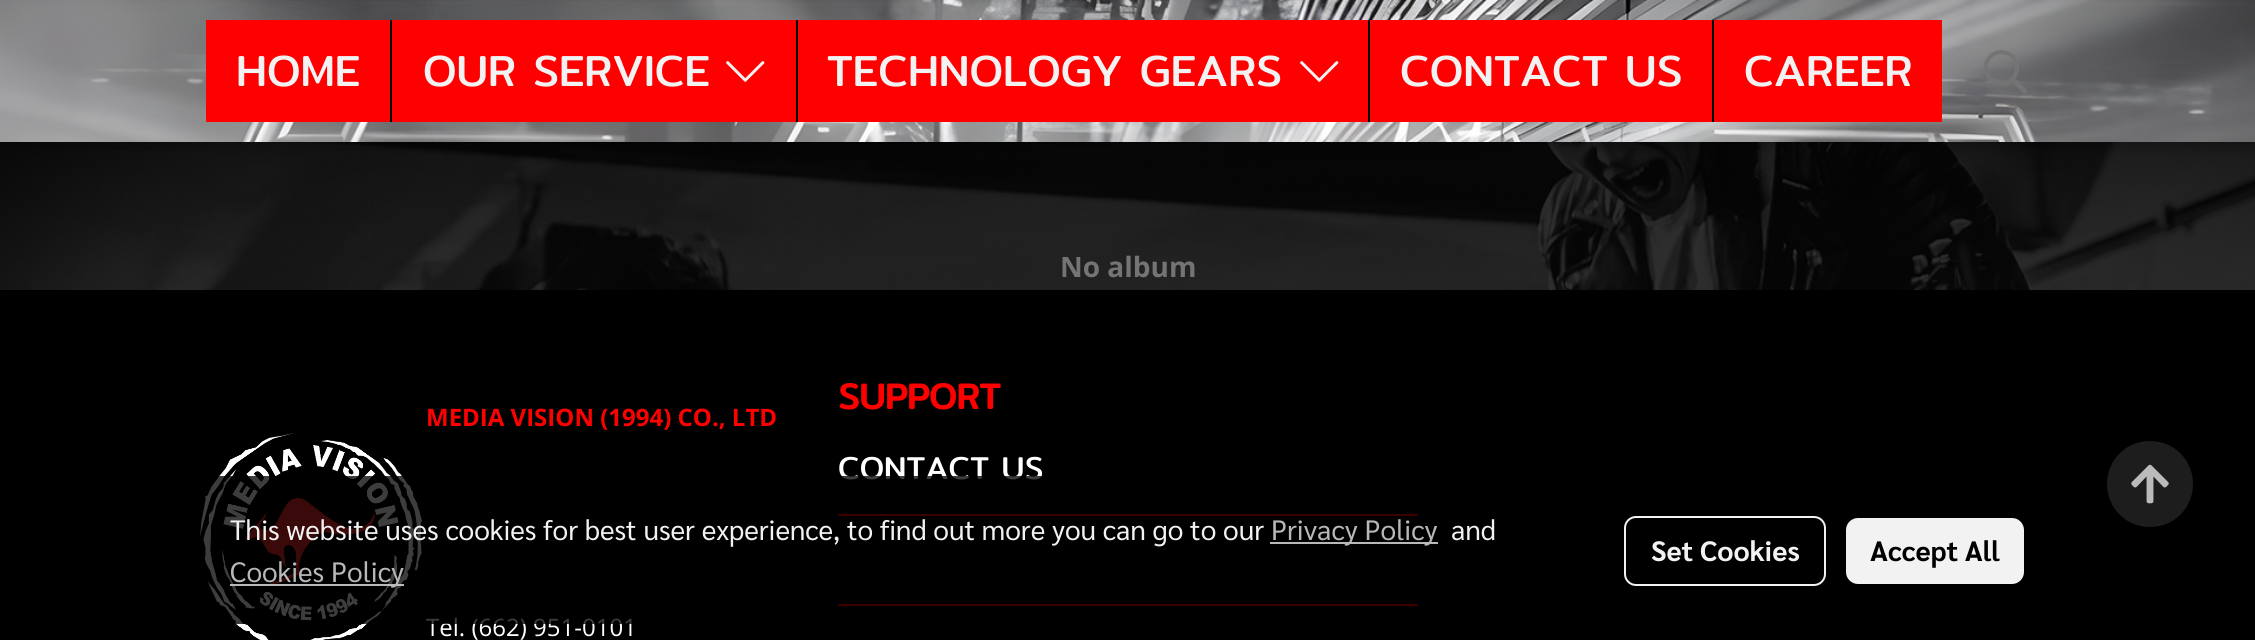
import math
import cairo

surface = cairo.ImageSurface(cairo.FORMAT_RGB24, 2255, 640)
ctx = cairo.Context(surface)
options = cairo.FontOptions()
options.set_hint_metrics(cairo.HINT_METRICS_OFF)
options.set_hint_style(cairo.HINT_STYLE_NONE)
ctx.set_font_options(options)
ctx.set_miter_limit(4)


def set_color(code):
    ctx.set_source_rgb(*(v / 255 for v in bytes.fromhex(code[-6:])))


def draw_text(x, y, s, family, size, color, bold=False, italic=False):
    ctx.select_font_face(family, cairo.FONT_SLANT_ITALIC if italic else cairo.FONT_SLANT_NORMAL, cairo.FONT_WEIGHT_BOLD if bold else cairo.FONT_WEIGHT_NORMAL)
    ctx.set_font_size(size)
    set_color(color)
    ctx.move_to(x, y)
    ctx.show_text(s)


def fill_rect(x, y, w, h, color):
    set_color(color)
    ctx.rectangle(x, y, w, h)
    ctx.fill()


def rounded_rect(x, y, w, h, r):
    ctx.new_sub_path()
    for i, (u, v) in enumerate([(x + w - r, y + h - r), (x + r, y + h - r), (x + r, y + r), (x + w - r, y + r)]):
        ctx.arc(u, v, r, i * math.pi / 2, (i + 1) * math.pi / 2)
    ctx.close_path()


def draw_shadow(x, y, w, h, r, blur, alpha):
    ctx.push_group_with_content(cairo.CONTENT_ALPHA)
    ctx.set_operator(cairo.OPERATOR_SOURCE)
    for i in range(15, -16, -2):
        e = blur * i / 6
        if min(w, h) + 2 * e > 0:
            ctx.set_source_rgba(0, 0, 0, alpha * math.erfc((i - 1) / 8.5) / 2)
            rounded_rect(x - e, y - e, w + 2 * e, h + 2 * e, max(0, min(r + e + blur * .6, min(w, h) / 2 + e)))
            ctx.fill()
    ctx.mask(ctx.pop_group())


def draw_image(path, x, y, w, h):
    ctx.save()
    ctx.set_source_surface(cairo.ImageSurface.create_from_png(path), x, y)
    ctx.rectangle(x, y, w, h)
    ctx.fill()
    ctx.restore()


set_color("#ffffff")
ctx.paint()
draw_image("assets/img1.png", 0, 142, 2255, 148)
set_color("#000000")
draw_shadow(0, 4, 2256, 142, 0, 10, 0.12)
draw_shadow(0, 4, 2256, 142, 0, 5, 0.16)
draw_image("assets/img2.png", 0, 0, 2255, 142)
fill_rect(390, 20, 2, 102, "#000000")
fill_rect(206, 20, 184, 102, "#ff0000")
draw_text(236, 86, "HOME", "Mitr", 44, "#f3f2f2")
fill_rect(796, 20, 2, 102, "#000000")
fill_rect(392, 20, 404, 102, "#ff0000")
draw_text(423, 86, "OUR SERVICE", "Mitr", 44, "#f3f2f2")
draw_image("assets/img3.png", 726, 61, 39, 21)
fill_rect(1368, 20, 2, 102, "#000000")
fill_rect(798, 20, 570, 102, "#ff0000")
draw_text(827, 86, "TECHNOLOGY GEARS", "Mitr", 44, "#f3f2f2")
draw_image("assets/img3.png", 1300, 61, 39, 21)
fill_rect(1712, 20, 2, 102, "#000000")
fill_rect(1370, 20, 342, 102, "#ff0000")
draw_text(1400, 86, "CONTACT US", "Mitr", 44, "#f3f2f2")
fill_rect(1714, 20, 228, 102, "#ff0000")
draw_text(1744, 86, "CAREER", "Mitr", 44, "#f3f2f2")
draw_image("assets/img4.png", 1983, 50, 45, 44)
draw_text(1060, 277, "No album", "Open Sans", 28, "#747474", bold=True)
fill_rect(0, 290, 2255, 350, "#000000")
draw_image("assets/img5.png", 200, 433, 222, 207)
draw_text(426, 426, "MEDIA VISION (1994) CO., LTD", "Open Sans", 24, "#ff0000", bold=True)
draw_text(426, 636, "Tel. (662) 951-0101", "Open Sans", 24, "#ffffff")
draw_text(838, 409, "SUPPORT", "Mitr", 36, "#ff0000", bold=True)
fill_rect(838, 514, 580, 2, "#ff0000")
draw_text(838, 479, "CONTACT US", "Mitr", 32, "#ffffff")
fill_rect(838, 604, 580, 2, "#ff0000")
set_color("#1e1d1d")
ctx.new_path()
ctx.move_to(2150, 441)
ctx.curve_to(2126, 441, 2107, 460, 2107, 484)
ctx.curve_to(2107, 508, 2126, 527, 2150, 527)
ctx.curve_to(2174, 527, 2193, 508, 2193, 484)
ctx.curve_to(2193, 460, 2174, 441, 2150, 441)
ctx.close_path()
ctx.fill()
draw_image("assets/img6.png", 2131, 464, 38, 40)
ctx.set_source_rgba(0, 0, 0, 0.76)
rounded_rect(168, 476, 1920, 148, 16)
ctx.fill()
draw_text(230, 540, "This website uses cookies for best user experience, to find out more you can go to our", "Sarabun", 28, "#f3f2f2")
fill_rect(1270, 542, 168, 2, "#b8b8b8")
draw_text(1271, 540, "Privacy Policy", "Sarabun", 28, "#b8b8b8")
draw_text(1451, 540, "and", "Sarabun", 28, "#f3f2f2")
ctx.set_source_rgba(0.761, 0.761, 0.761, 0.95)
ctx.rectangle(230, 584, 174, 2)
ctx.fill()
draw_text(230, 582, "Cookies Policy", "Sarabun", 28, "#b8b8b8")
rounded_rect(1625, 517, 200, 68, 11)
set_color("#f2f2f2")
ctx.stroke()
draw_text(1651, 561, "Set Cookies", "Sarabun", 28, "#f3f2f2", bold=True)
set_color("#f2f2f2")
rounded_rect(1846, 518, 178, 66, 12)
ctx.fill()
draw_text(1870, 561, "Accept All", "Sarabun", 28, "#000000", bold=True)
surface.write_to_png("output.png")
